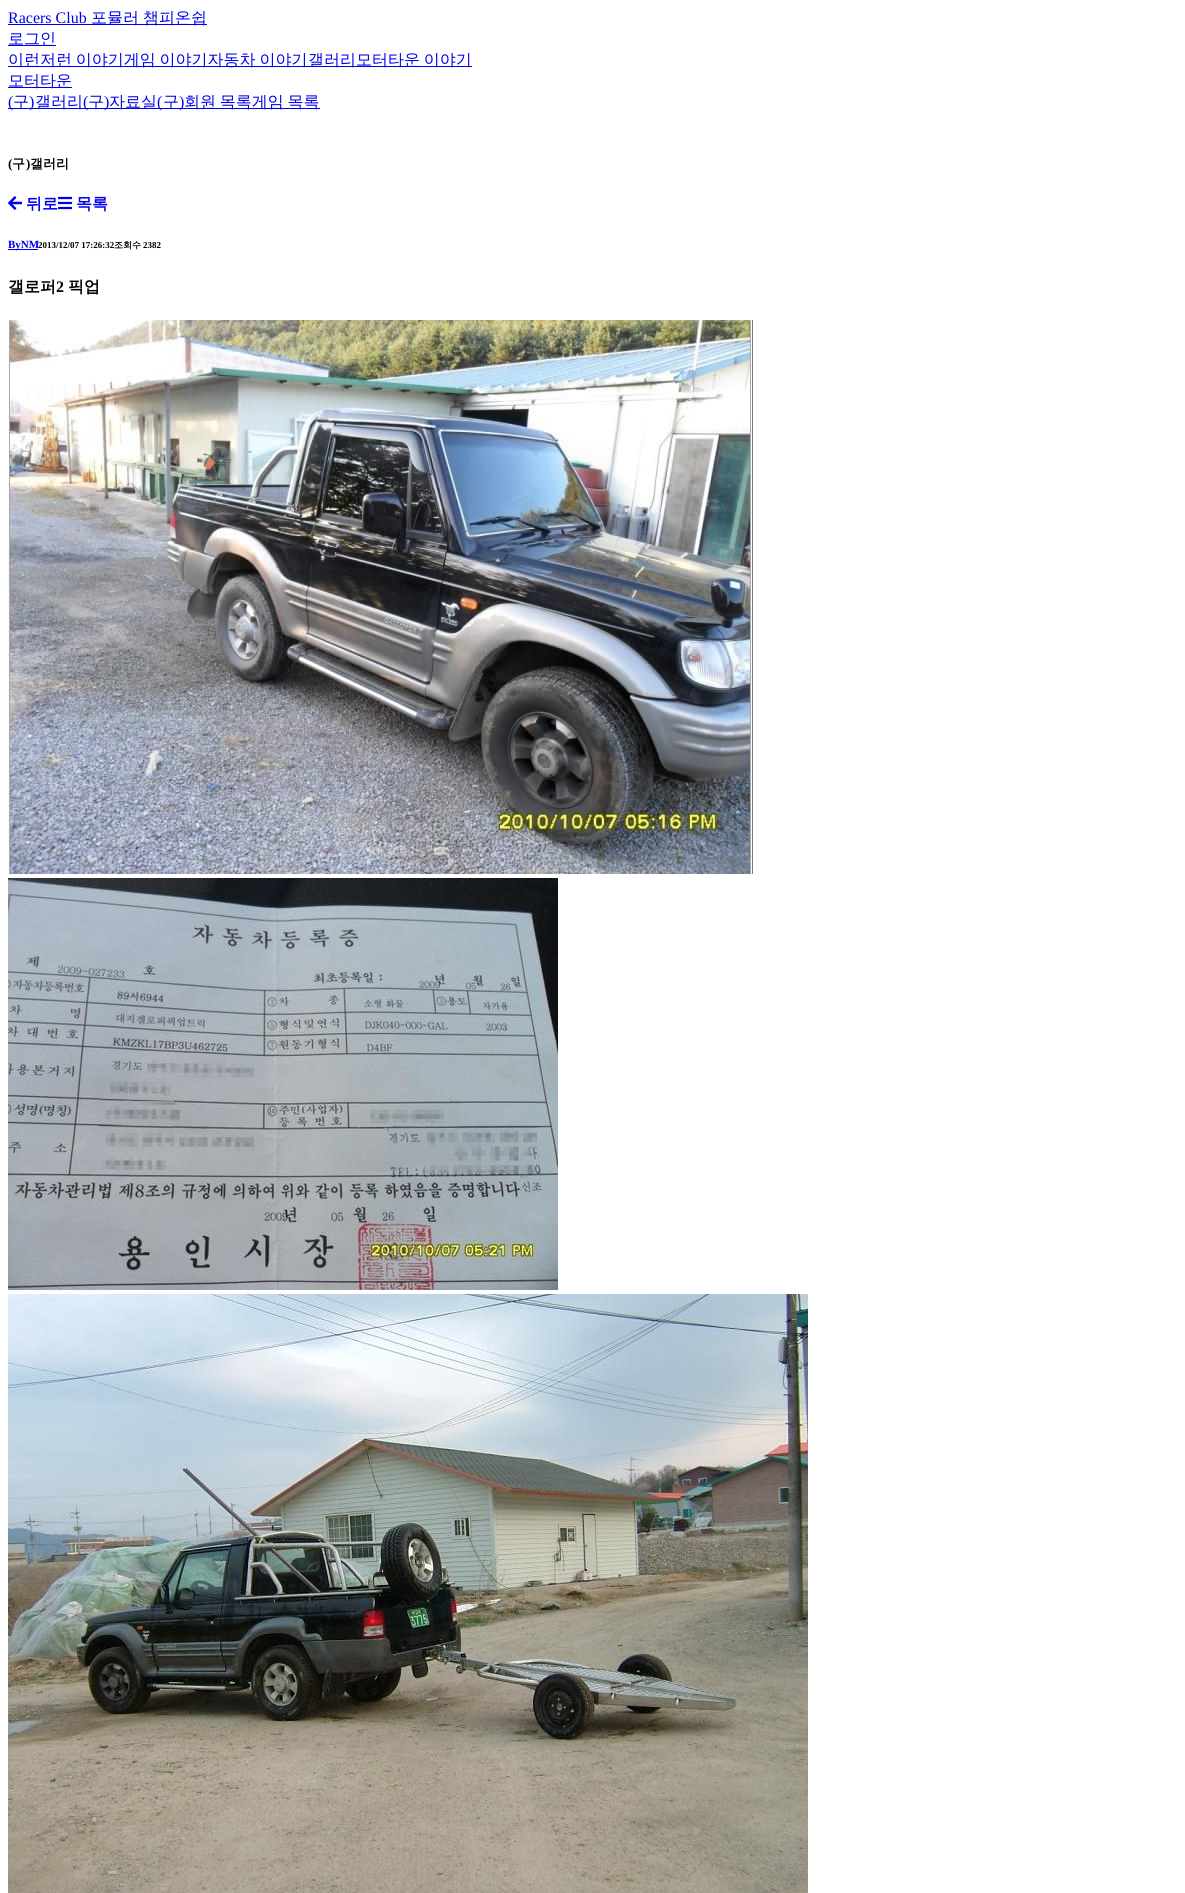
import math
import cairo

surface = cairo.ImageSurface(cairo.FORMAT_RGB24, 1185, 1893)
ctx = cairo.Context(surface)
options = cairo.FontOptions()
options.set_hint_metrics(cairo.HINT_METRICS_OFF)
options.set_hint_style(cairo.HINT_STYLE_NONE)
ctx.set_font_options(options)
ctx.set_miter_limit(4)


def set_color(code):
    ctx.set_source_rgb(*(v / 255 for v in bytes.fromhex(code[-6:])))


def draw_text(x, y, s, family, size, color, bold=False, italic=False):
    ctx.select_font_face(family, cairo.FONT_SLANT_ITALIC if italic else cairo.FONT_SLANT_NORMAL, cairo.FONT_WEIGHT_BOLD if bold else cairo.FONT_WEIGHT_NORMAL)
    ctx.set_font_size(size)
    set_color(color)
    ctx.move_to(x, y)
    ctx.show_text(s)


def draw_spaced(x, y, s, letter, word):
    ctx.move_to(x, y)
    for ch in s:
        ctx.show_text(ch)
        ctx.rel_move_to(letter + word * (ch == ' '), 0)


def fill_rect(x, y, w, h, color):
    set_color(color)
    ctx.rectangle(x, y, w, h)
    ctx.fill()


def draw_image(path, x, y, w, h):
    ctx.save()
    ctx.set_source_surface(cairo.ImageSurface.create_from_png(path), x, y)
    ctx.rectangle(x, y, w, h)
    ctx.fill()
    ctx.restore()


set_color("#ffffff")
ctx.paint()
draw_text(8, 23, "Racers Club", "Liberation Serif", 16, "#0000ee")
fill_rect(8, 24, 199, 1, "#0000ee")
draw_text(91, 23, "포뮬러", "WenQuanYi Zen Hei Medium", 16, "#0000ee")
draw_text(143, 23, "챔피온쉽", "WenQuanYi Zen Hei Medium", 16, "#0000ee")
fill_rect(8, 45, 48, 1, "#0000ee")
draw_text(8, 44, "로그인", "WenQuanYi Zen Hei Medium", 16, "#0000ee")
fill_rect(8, 66, 464, 1, "#0000ee")
draw_spaced(8, 65, "이런저런 이야기게임 이야기자동차 이야기", 0, -1)
draw_text(308, 65, "갤러리", "WenQuanYi Zen Hei Medium", 16, "#0000ee")
draw_spaced(356, 65, "모터타운 이야기", 0, -1)
fill_rect(8, 87, 64, 1, "#0000ee")
draw_text(8, 86, "모터타운", "WenQuanYi Zen Hei Medium", 16, "#0000ee")
fill_rect(8, 108, 312, 1, "#0000ee")
draw_text(8, 107, "(", "Liberation Serif", 16, "#0000ee")
draw_text(13, 107, "구", "WenQuanYi Zen Hei Medium", 16, "#0000ee")
draw_text(29, 107, ")", "Liberation Serif", 16, "#0000ee")
draw_text(35, 107, "갤러리", "WenQuanYi Zen Hei Medium", 16, "#0000ee")
draw_text(83, 107, "(", "Liberation Serif", 16, "#0000ee")
draw_text(88, 107, "구", "WenQuanYi Zen Hei Medium", 16, "#0000ee")
draw_text(104, 107, ")", "Liberation Serif", 16, "#0000ee")
draw_text(109, 107, "자료실", "WenQuanYi Zen Hei Medium", 16, "#0000ee")
draw_text(157, 107, "(", "Liberation Serif", 16, "#0000ee")
draw_text(163, 107, "구", "WenQuanYi Zen Hei Medium", 16, "#0000ee")
draw_text(179, 107, ")", "Liberation Serif", 16, "#0000ee")
ctx.select_font_face("WenQuanYi Zen Hei Medium")
draw_spaced(184, 107, "회원 목록게임 목록", 0, -1)
draw_text(8, 168, "(", "Liberation Serif", 13, "#000000", bold=True)
draw_text(12, 168, "구", "WenQuanYi Zen Hei", 13, "#000000", bold=True)
draw_text(26, 168, ")", "Liberation Serif", 13, "#000000", bold=True)
draw_text(30, 168, "갤러리", "WenQuanYi Zen Hei", 13, "#000000", bold=True)
draw_image("assets/img1.png", 8, 196, 14, 14)
draw_text(26, 209, "뒤로", "WenQuanYi Zen Hei", 16, "#0000ee", bold=True)
draw_image("assets/img2.png", 58, 196, 14, 14)
draw_text(76, 209, "목록", "WenQuanYi Zen Hei", 16, "#0000ee", bold=True)
fill_rect(8, 249, 30, 1, "#0000ee")
draw_text(8, 248, "ByNM", "Liberation Serif", 11, "#0000ee", bold=True)
draw_text(38, 248, "2013/12/07 17:26:32", "Liberation Serif", 9, "#000000", bold=True)
draw_text(114, 248, "조회수", "WenQuanYi Zen Hei", 9, "#000000", bold=True)
draw_text(143, 248, "2382", "Liberation Serif", 9, "#000000", bold=True)
draw_text(8, 292, "갤로퍼", "WenQuanYi Zen Hei", 16, "#000000", bold=True)
draw_text(56, 292, "2", "Liberation Serif", 16, "#000000", bold=True)
draw_text(68, 292, "픽업", "WenQuanYi Zen Hei", 16, "#000000", bold=True)
draw_image("assets/img3.png", 8, 320, 745, 554)
draw_image("assets/img4.png", 8, 878, 550, 412)
draw_image("assets/img5.png", 8, 1294, 800, 599)
surface.write_to_png("output.png")
